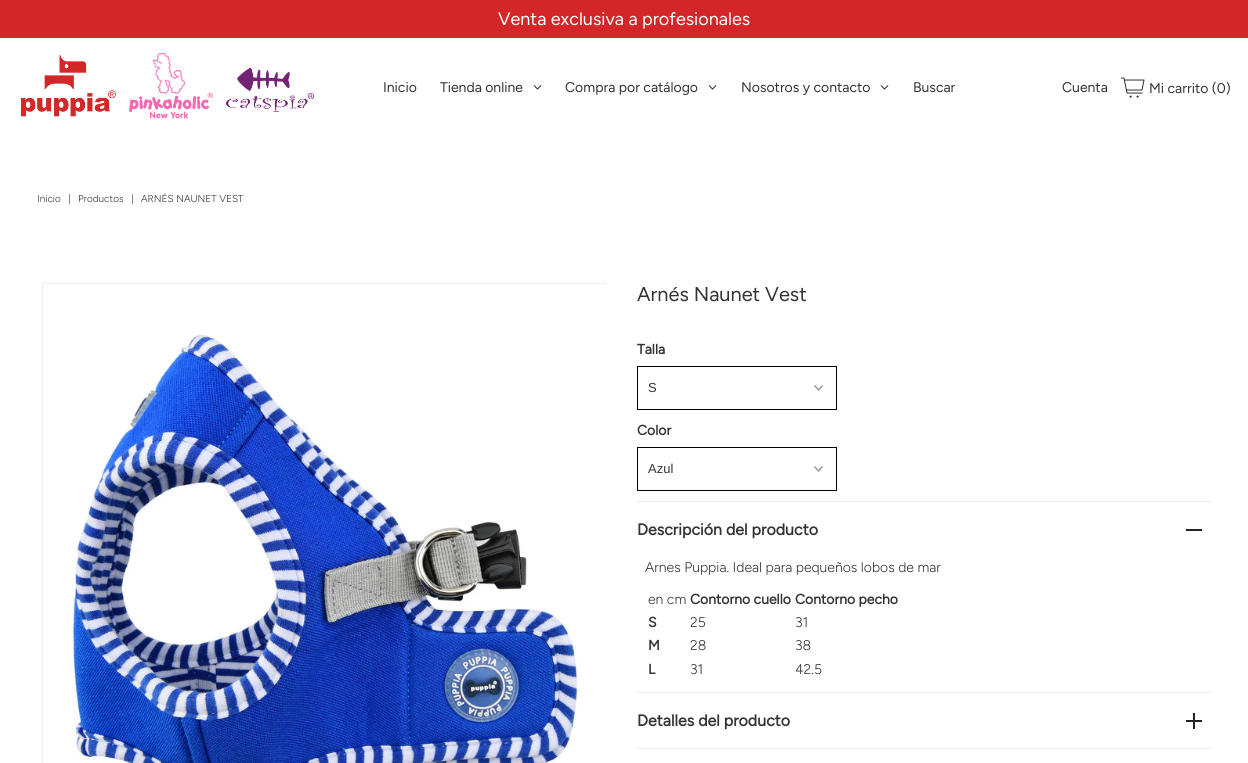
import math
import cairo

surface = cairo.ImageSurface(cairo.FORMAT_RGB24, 1248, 763)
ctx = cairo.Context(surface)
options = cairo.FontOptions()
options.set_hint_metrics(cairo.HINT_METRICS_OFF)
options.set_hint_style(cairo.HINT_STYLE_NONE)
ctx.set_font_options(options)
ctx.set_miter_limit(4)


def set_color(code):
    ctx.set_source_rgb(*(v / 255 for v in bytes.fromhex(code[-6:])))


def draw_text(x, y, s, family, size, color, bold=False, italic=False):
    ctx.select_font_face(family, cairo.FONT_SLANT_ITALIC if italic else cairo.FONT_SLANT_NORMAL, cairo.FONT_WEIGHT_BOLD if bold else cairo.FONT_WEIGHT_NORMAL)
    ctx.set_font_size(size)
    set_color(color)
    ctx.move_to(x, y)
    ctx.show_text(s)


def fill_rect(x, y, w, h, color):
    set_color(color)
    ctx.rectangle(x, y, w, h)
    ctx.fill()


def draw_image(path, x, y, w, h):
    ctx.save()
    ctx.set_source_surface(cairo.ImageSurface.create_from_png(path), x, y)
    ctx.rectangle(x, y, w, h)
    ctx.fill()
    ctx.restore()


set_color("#ffffff")
ctx.paint()
fill_rect(0, 0, 1248, 38, "#d42628")
draw_text(498, 25, "Venta exclusiva a profesionales", "Figtree", 18, "#ffffff")
draw_image("assets/img1.png", 21, 52, 294, 67)
draw_text(383, 92, "Inicio", "Figtree", 14, "#333333")
draw_text(440, 92, "Tienda online", "Figtree", 14, "#333333")
draw_image("assets/img2.png", 533, 85, 9, 5)
draw_text(565, 92, "Compra por catálogo", "Figtree", 14, "#333333")
draw_image("assets/img2.png", 708, 85, 9, 5)
draw_text(741, 92, "Nosotros y contacto", "Figtree", 14, "#333333")
draw_image("assets/img2.png", 880, 85, 9, 5)
draw_text(913, 92, "Buscar", "Figtree", 14, "#333333")
draw_text(1062, 92, "Cuenta", "Figtree", 14, "#333333")
draw_image("assets/img3.png", 1121, 77, 24, 22)
draw_text(1149, 93, "Mi carrito (0)", "Figtree", 14, "#333333")
draw_text(37, 202, "Inicio", "Figtree Light", 10, "#333333")
draw_text(68, 202, "|", "Figtree Light", 10, "#333333")
draw_text(78, 202, "Productos", "Figtree Light", 10, "#333333")
draw_text(131, 202, "|", "Figtree Light", 10, "#333333")
draw_text(141, 202, "ARNÉS NAUNET VEST", "Figtree Light", 10, "#333333")
ctx.save()
ctx.rectangle(42, 283, 564, 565)
ctx.clip()
ctx.rectangle(42.5, 283.5, 565, 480)
set_color("#eeeeee")
ctx.set_line_width(1)
ctx.stroke()
ctx.restore()
draw_image("assets/img4.png", 68, 334, 514, 429)
draw_text(637, 301, "Arnés Naunet Vest", "Figtree", 20, "#333333")
draw_text(637, 354, "Talla", "Figtree", 14, "#333333", bold=True)
draw_image("assets/img5.png", 814, 385, 9, 6)
ctx.rectangle(637.5, 366.5, 199, 43)
set_color("#000000")
ctx.set_line_width(1)
ctx.stroke()
draw_text(648, 392, "S", "Liberation Sans", 13, "#333333")
draw_text(637, 435, "Color", "Figtree", 14, "#333333", bold=True)
draw_image("assets/img5.png", 814, 466, 9, 6)
ctx.rectangle(637.5, 447.5, 199, 43)
set_color("#000000")
ctx.stroke()
draw_text(648, 473, "Azul", "Liberation Sans", 13, "#333333")
fill_rect(637, 501, 575, 1, "#eeeeee")
draw_text(637, 535, "Descripción del producto", "Figtree", 16, "#333333", bold=True)
fill_rect(1186, 529, 16, 2, "#222222")
draw_text(645, 572, "Arnes Puppia. Ideal para pequeños lobos de mar", "Figtree Light", 14, "#333333")
draw_text(648, 604, "en cm", "Figtree Light", 14, "#333333")
draw_text(690, 604, "Contorno cuello", "Figtree", 14, "#333333", bold=True)
draw_text(795, 604, "Contorno pecho", "Figtree", 14, "#333333", bold=True)
draw_text(648, 627, "S", "Figtree", 14, "#333333", bold=True)
draw_text(690, 627, "25", "Figtree Light", 14, "#333333")
draw_text(795, 627, "31", "Figtree Light", 14, "#333333")
draw_text(648, 650, "M", "Figtree", 14, "#333333", bold=True)
draw_text(690, 650, "28", "Figtree Light", 14, "#333333")
draw_text(795, 650, "38", "Figtree Light", 14, "#333333")
draw_text(648, 674, "L", "Figtree", 14, "#333333", bold=True)
draw_text(690, 674, "31", "Figtree Light", 14, "#333333")
draw_text(795, 674, "42.5", "Figtree Light", 14, "#333333")
fill_rect(637, 748, 575, 1, "#eeeeee")
fill_rect(637, 692, 575, 1, "#eeeeee")
draw_text(637, 726, "Detalles del producto", "Figtree", 16, "#333333", bold=True)
fill_rect(1193, 713, 2, 16, "#222222")
fill_rect(1186, 720, 16, 2, "#222222")
surface.write_to_png("output.png")
